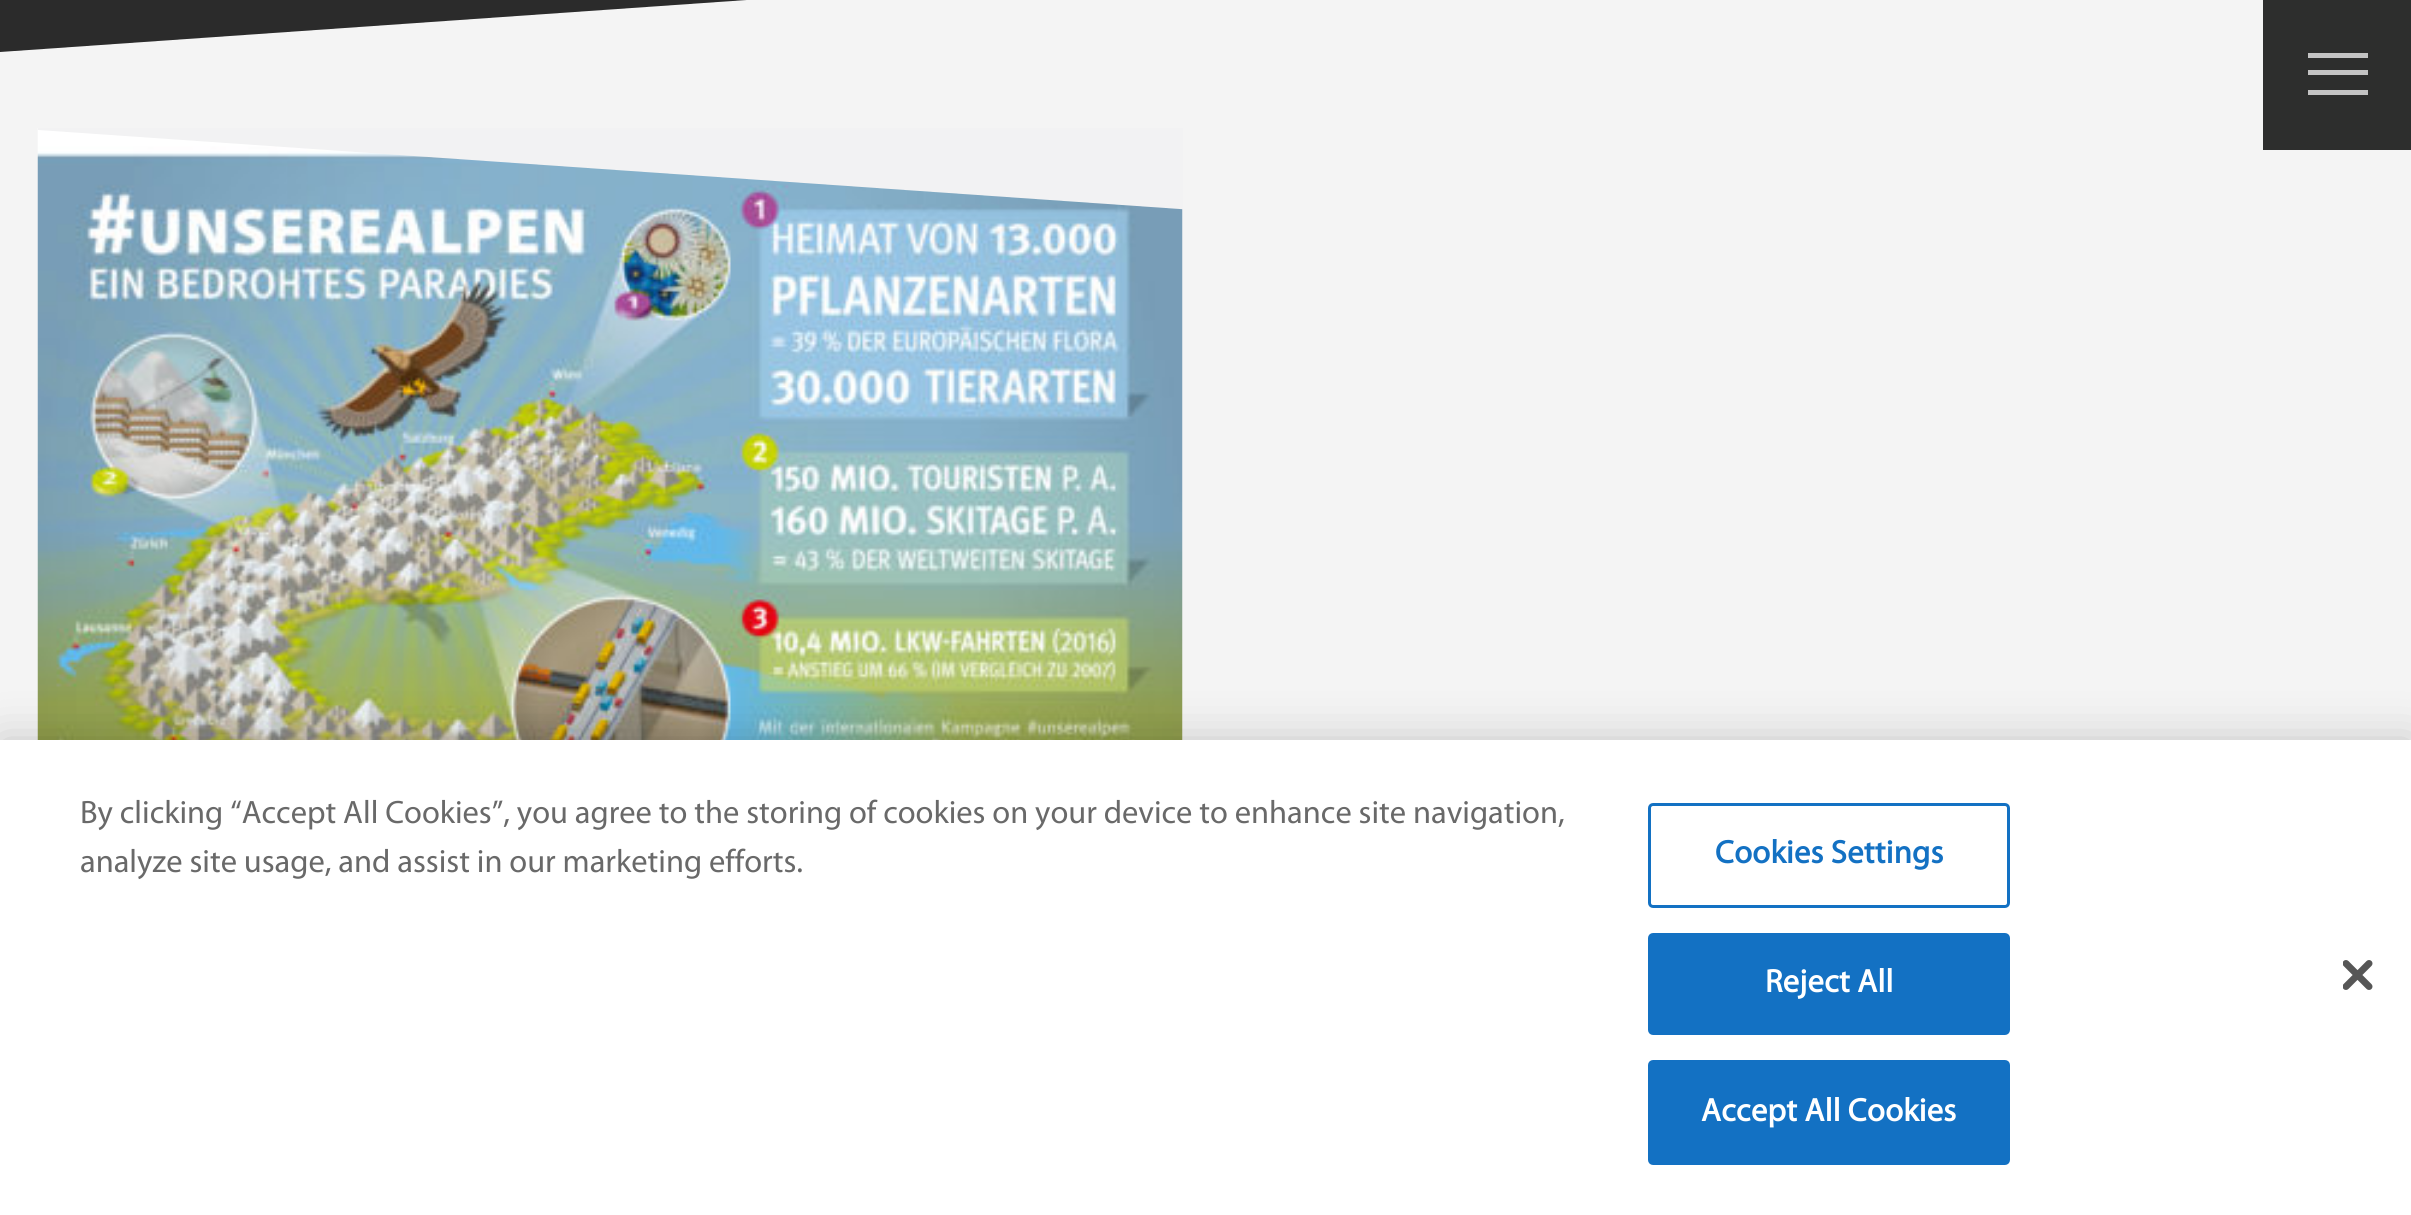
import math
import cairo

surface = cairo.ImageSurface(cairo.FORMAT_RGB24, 2411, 1215)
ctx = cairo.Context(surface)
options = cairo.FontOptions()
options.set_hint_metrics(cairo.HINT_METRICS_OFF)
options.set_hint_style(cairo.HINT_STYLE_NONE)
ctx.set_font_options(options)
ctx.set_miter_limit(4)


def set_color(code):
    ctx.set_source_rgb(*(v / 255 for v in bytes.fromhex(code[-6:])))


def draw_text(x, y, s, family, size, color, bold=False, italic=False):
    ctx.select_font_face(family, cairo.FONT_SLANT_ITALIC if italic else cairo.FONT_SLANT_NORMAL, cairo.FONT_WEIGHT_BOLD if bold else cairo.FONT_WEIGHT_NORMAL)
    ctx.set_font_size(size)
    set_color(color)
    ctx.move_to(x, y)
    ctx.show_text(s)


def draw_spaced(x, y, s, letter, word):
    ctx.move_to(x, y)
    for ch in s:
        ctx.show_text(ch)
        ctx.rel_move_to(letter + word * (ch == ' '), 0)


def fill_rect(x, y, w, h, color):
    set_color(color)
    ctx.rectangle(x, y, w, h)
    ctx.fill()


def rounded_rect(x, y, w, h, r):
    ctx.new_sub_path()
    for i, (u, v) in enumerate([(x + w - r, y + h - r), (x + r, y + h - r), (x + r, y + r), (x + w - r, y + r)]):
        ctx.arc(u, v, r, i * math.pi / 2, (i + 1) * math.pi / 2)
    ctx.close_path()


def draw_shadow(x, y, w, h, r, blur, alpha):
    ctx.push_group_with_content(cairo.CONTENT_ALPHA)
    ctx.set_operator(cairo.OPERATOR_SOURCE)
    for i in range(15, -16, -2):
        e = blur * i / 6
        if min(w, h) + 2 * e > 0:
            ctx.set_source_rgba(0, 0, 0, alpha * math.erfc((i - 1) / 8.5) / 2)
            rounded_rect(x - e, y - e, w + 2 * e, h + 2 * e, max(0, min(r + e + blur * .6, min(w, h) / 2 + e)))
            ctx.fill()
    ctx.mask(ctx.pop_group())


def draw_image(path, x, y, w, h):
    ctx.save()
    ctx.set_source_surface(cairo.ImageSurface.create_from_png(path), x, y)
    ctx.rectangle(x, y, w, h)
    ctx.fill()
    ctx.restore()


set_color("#f4f4f4")
ctx.paint()
set_color("#2b2b2b")
ctx.new_path()
ctx.move_to(0, -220)
ctx.line_to(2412, -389)
ctx.line_to(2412, -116)
ctx.line_to(0, 52)
ctx.close_path()
ctx.fill()
draw_image("assets/img1.png", 37, 128, 1146, 612)
ctx.save()
ctx.rectangle(38, 128, 1145, 725)
ctx.clip()
set_color("#f2f2f3")
ctx.new_path()
ctx.move_to(38, 15)
ctx.line_to(1194, 95)
ctx.line_to(1194, 210)
ctx.line_to(38, 130)
ctx.close_path()
ctx.fill()
ctx.restore()
fill_rect(2263, 0, 148, 150, "#2d2e2d")
fill_rect(2308, 53, 60, 5, "#c3c3c3")
fill_rect(2308, 70, 60, 5, "#c3c3c3")
fill_rect(2308, 90, 60, 5, "#c3c3c3")
set_color("#000000")
draw_shadow(0, 740, 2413, 475, 0, 22.5, 0.2)
fill_rect(0, 740, 2411, 475, "#ffffff")
draw_text(80, 823, "By clicking “Accept All Cookies”, you agree to the storing of cookies on your device to enhance site navigation,", "Myriad", 32.5, "#696969")
draw_text(80, 872, "analyze site usage, and assist in our marketing efforts.", "Myriad", 32.5, "#696969")
rounded_rect(1649.5, 804.5, 359, 102, 3.5)
set_color("#1371c3")
ctx.set_line_width(3)
ctx.stroke()
ctx.select_font_face("Myriad", cairo.FONT_SLANT_NORMAL, cairo.FONT_WEIGHT_BOLD)
draw_spaced(1715, 863, "Cookies Settings", 0.3, 0)
rounded_rect(1649.5, 934.5, 359, 99, 3.5)
ctx.fill_preserve()
ctx.stroke()
set_color("#ffffff")
draw_spaced(1765, 992, "Reject All", 0.3, 0)
set_color("#1371c3")
rounded_rect(1649.5, 1061.5, 359, 102, 3.5)
ctx.fill_preserve()
ctx.stroke()
set_color("#ffffff")
draw_spaced(1701, 1121, "Accept All Cookies", 0.3, 0)
draw_image("assets/img2.png", 2343, 960, 30, 30)
surface.write_to_png("output.png")
